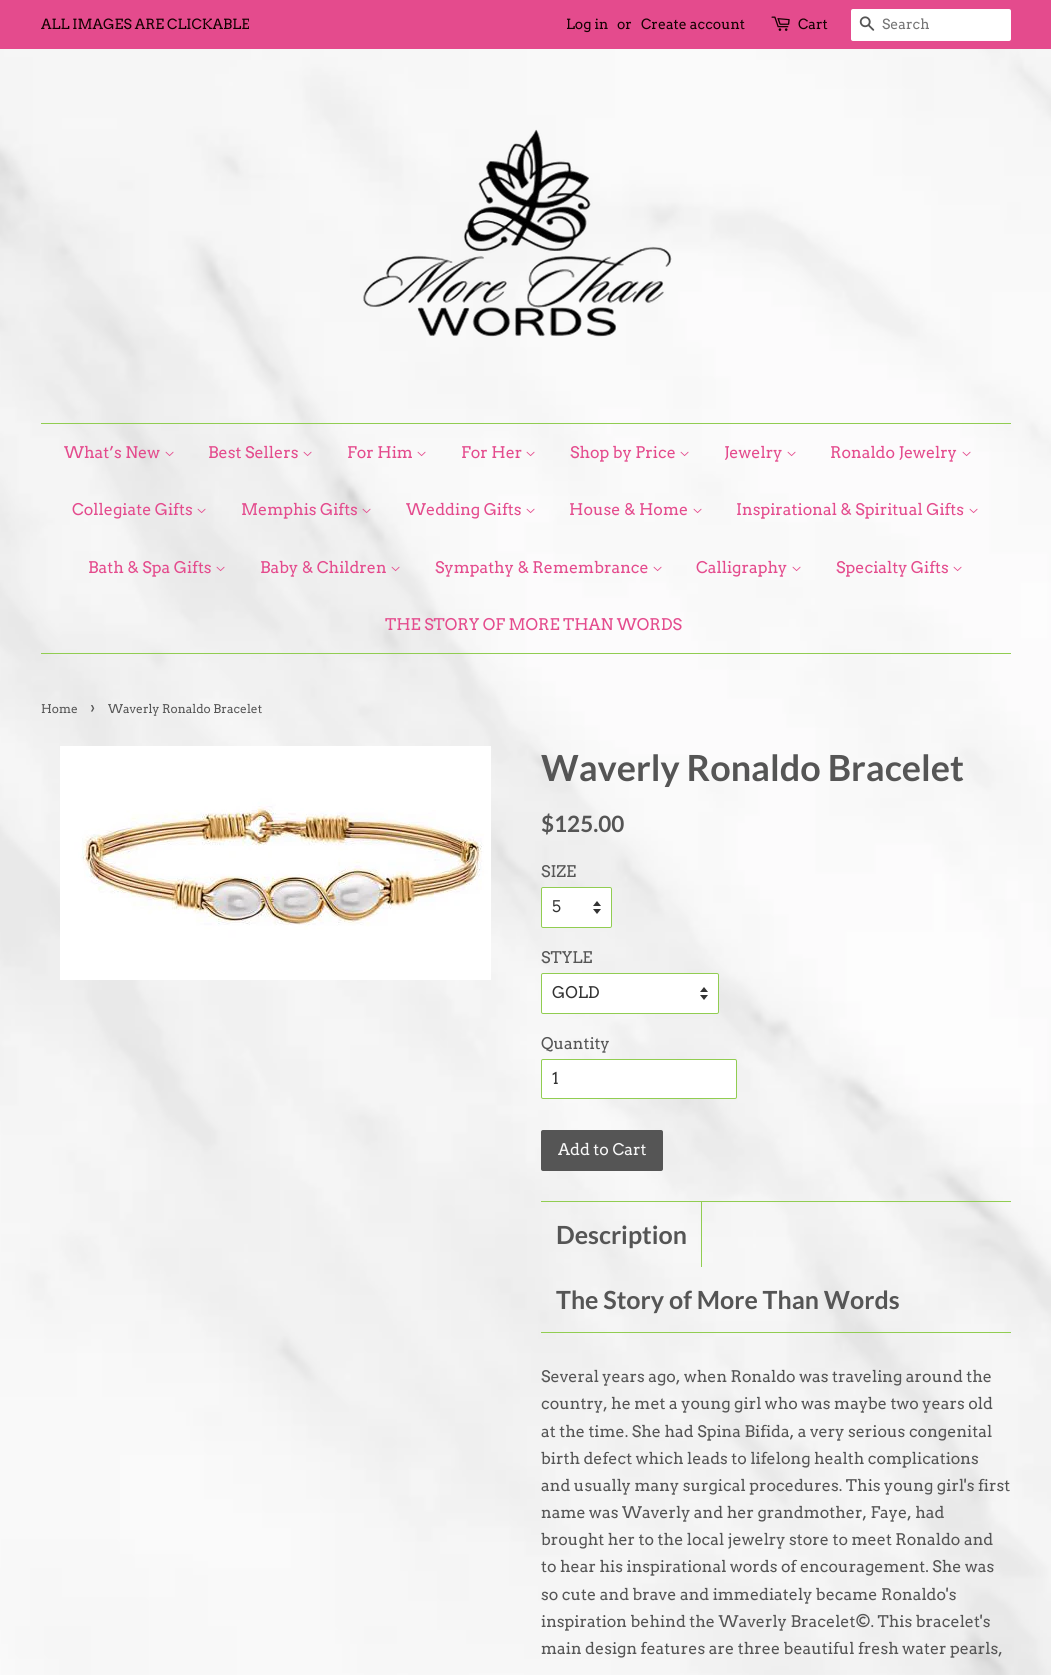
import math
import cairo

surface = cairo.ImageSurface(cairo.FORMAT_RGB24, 1051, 1675)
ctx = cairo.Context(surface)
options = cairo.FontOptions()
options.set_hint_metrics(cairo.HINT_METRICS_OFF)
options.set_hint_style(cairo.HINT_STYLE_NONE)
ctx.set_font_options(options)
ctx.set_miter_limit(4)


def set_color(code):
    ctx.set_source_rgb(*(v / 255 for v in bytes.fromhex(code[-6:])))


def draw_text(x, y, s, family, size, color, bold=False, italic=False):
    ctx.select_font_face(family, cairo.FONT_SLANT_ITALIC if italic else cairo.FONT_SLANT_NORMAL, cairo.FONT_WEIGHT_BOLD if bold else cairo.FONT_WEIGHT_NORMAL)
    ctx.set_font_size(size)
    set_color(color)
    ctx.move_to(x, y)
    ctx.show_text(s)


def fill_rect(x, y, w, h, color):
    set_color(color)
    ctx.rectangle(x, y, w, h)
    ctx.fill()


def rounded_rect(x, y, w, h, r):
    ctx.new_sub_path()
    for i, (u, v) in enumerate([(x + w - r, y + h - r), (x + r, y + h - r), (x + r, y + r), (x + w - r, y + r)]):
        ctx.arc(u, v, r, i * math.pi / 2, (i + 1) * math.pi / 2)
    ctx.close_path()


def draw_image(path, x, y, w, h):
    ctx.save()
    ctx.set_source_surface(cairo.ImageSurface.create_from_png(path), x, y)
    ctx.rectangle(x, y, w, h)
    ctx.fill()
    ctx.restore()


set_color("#ffffff")
ctx.paint()
draw_image("assets/img1.png", 0, 49, 1051, 1626)
fill_rect(0, 0, 1051, 49, "#e44b8d")
ctx.save()
ctx.rectangle(41, 13, 208, 24)
ctx.clip()
draw_text(41, 29, "ALL IMAGES ARE CLICKABLE", "Arvo", 14, "#140101")
ctx.restore()
draw_text(566, 29, "Log in", "Arvo", 14, "#140101")
draw_text(617, 29, "or", "Arvo", 14, "#140101")
draw_text(641, 29, "Create account", "Arvo", 14, "#140101")
draw_image("assets/img2.png", 771, 16, 19, 15)
draw_text(798, 29, "Cart", "Arvo", 14, "#140101")
set_color("#ffffff")
rounded_rect(851, 9, 160, 32, 2)
ctx.fill()
draw_image("assets/img3.png", 859, 16, 16, 15)
draw_text(882, 29, "Search", "Arvo", 14, "#757575")
draw_image("assets/img4.png", 363, 129, 309, 208)
fill_rect(41, 423, 970, 1, "#91cd51")
fill_rect(41, 653, 970, 1, "#91cd51")
draw_text(64, 458, "What’s New", "Arvo", 16, "#e44b8d")
draw_image("assets/img5.png", 165, 451, 9, 6)
draw_text(208, 458, "Best Sellers", "Arvo", 16, "#e44b8d")
draw_image("assets/img6.png", 303, 451, 9, 6)
draw_text(347, 458, "For Him", "Arvo", 16, "#e44b8d")
draw_image("assets/img7.png", 417, 451, 9, 6)
draw_text(461, 458, "For Her", "Arvo", 16, "#e44b8d")
draw_image("assets/img8.png", 526, 451, 9, 6)
draw_text(570, 458, "Shop by Price", "Arvo", 16, "#e44b8d")
draw_image("assets/img7.png", 680, 451, 9, 6)
draw_text(724, 458, "Jewelry", "Arvo", 16, "#e44b8d")
draw_image("assets/img9.png", 787, 451, 9, 6)
draw_text(830, 458, "Ronaldo Jewelry", "Arvo", 16, "#e44b8d")
draw_image("assets/img9.png", 962, 451, 9, 6)
draw_text(72, 515, "Collegiate Gifts", "Arvo", 16, "#e44b8d")
draw_image("assets/img10.png", 197, 508, 9, 6)
draw_text(241, 515, "Memphis Gifts", "Arvo", 16, "#e44b8d")
draw_image("assets/img11.png", 362, 508, 9, 6)
draw_text(406, 515, "Wedding Gifts", "Arvo", 16, "#e44b8d")
draw_image("assets/img9.png", 526, 508, 9, 6)
draw_text(569, 515, "House & Home", "Arvo", 16, "#e44b8d")
draw_image("assets/img12.png", 693, 508, 9, 6)
draw_text(736, 515, "Inspirational & Spiritual Gifts", "Arvo", 16, "#e44b8d")
draw_image("assets/img9.png", 969, 508, 9, 6)
draw_text(88, 573, "Bath & Spa Gifts", "Arvo", 16, "#e44b8d")
draw_image("assets/img13.png", 216, 566, 9, 6)
draw_text(260, 573, "Baby & Children", "Arvo", 16, "#e44b8d")
draw_image("assets/img14.png", 391, 566, 9, 6)
draw_text(435, 573, "Sympathy & Remembrance", "Arvo", 16, "#e44b8d")
draw_image("assets/img15.png", 653, 566, 9, 6)
draw_text(696, 573, "Calligraphy", "Arvo", 16, "#e44b8d")
draw_image("assets/img16.png", 792, 566, 9, 6)
draw_text(836, 573, "Specialty Gifts", "Arvo", 16, "#e44b8d")
draw_image("assets/img9.png", 953, 566, 9, 6)
draw_text(385, 630, "THE STORY OF MORE THAN WORDS", "Arvo", 16, "#e44b8d")
draw_text(41, 713, "Home", "Arvo", 12, "#555555")
draw_text(90, 713, "›", "Arvo", 17, "#555555")
draw_text(108, 713, "Waverly Ronaldo Bracelet", "Arvo", 12, "#555555")
draw_image("assets/img17.png", 60, 746, 431, 234)
draw_text(541, 781, "Waverly Ronaldo Bracelet", "Lato", 36, "#555555", bold=True)
draw_text(541, 832, "$125.00", "Lato", 22.5, "#555555", bold=True)
draw_text(541, 877, "SIZE", "Arvo", 16, "#555555")
set_color("#ffffff")
rounded_rect(541, 887, 71, 41, 2)
ctx.fill()
draw_image("assets/img18.png", 593, 901, 8, 13)
rounded_rect(541.5, 887.5, 70, 40, 1.5)
set_color("#91cd51")
ctx.set_line_width(1)
ctx.stroke()
draw_text(552, 912, "5", "Arvo", 16, "#333333")
draw_text(541, 963, "STYLE", "Arvo", 16, "#555555")
set_color("#ffffff")
rounded_rect(541, 973, 178, 41, 2)
ctx.fill()
draw_image("assets/img18.png", 700, 987, 8, 13)
rounded_rect(541.5, 973.5, 177, 40, 1.5)
set_color("#91cd51")
ctx.stroke()
draw_text(552, 998, "GOLD", "Arvo", 16, "#333333")
draw_text(541, 1049, "Quantity", "Arvo", 16, "#555555")
set_color("#ffffff")
rounded_rect(541.5, 1059.5, 195, 39, 1.5)
ctx.fill_preserve()
set_color("#91cd51")
ctx.stroke()
draw_text(552, 1084, "1", "Arvo", 16, "#333333")
set_color("#555555")
rounded_rect(541, 1130, 122, 41, 2)
ctx.fill()
draw_text(558, 1155, "Add to Cart", "Arvo", 16, "#f7f7f7")
fill_rect(541, 1201, 470, 1, "#91cd51")
fill_rect(541, 1332, 470, 1, "#91cd51")
fill_rect(701, 1202, 1, 65, "#91cd51")
draw_text(556, 1244, "Description", "Lato", 25, "#555555", bold=True)
draw_text(556, 1309, "The Story of More Than Words", "Lato", 25, "#555555", bold=True)
draw_text(541, 1382, "Several years ago, when Ronaldo was traveling around the", "Arvo", 16, "#555555")
draw_text(541, 1409, "country, he met a young girl who was maybe two years old", "Arvo", 16, "#555555")
draw_text(541, 1437, "at the time. She had Spina Bifida, a very serious congenital", "Arvo", 16, "#555555")
draw_text(541, 1464, "birth defect which leads to lifelong health complications", "Arvo", 16, "#555555")
draw_text(541, 1491, "and usually many surgical procedures. This young girl's first", "Arvo", 16, "#555555")
draw_text(541, 1518, "name was Waverly and her grandmother, Faye, had", "Arvo", 16, "#555555")
draw_text(541, 1545, "brought her to the local jewelry store to meet Ronaldo and", "Arvo", 16, "#555555")
draw_text(541, 1572, "to hear his inspirational words of encouragement. She was", "Arvo", 16, "#555555")
draw_text(541, 1600, "so cute and brave and immediately became Ronaldo's", "Arvo", 16, "#555555")
draw_text(541, 1627, "inspiration behind the Waverly Bracelet©. This bracelet's", "Arvo", 16, "#555555")
draw_text(541, 1654, "main design features are three beautiful fresh water pearls,", "Arvo", 16, "#555555")
surface.write_to_png("output.png")
